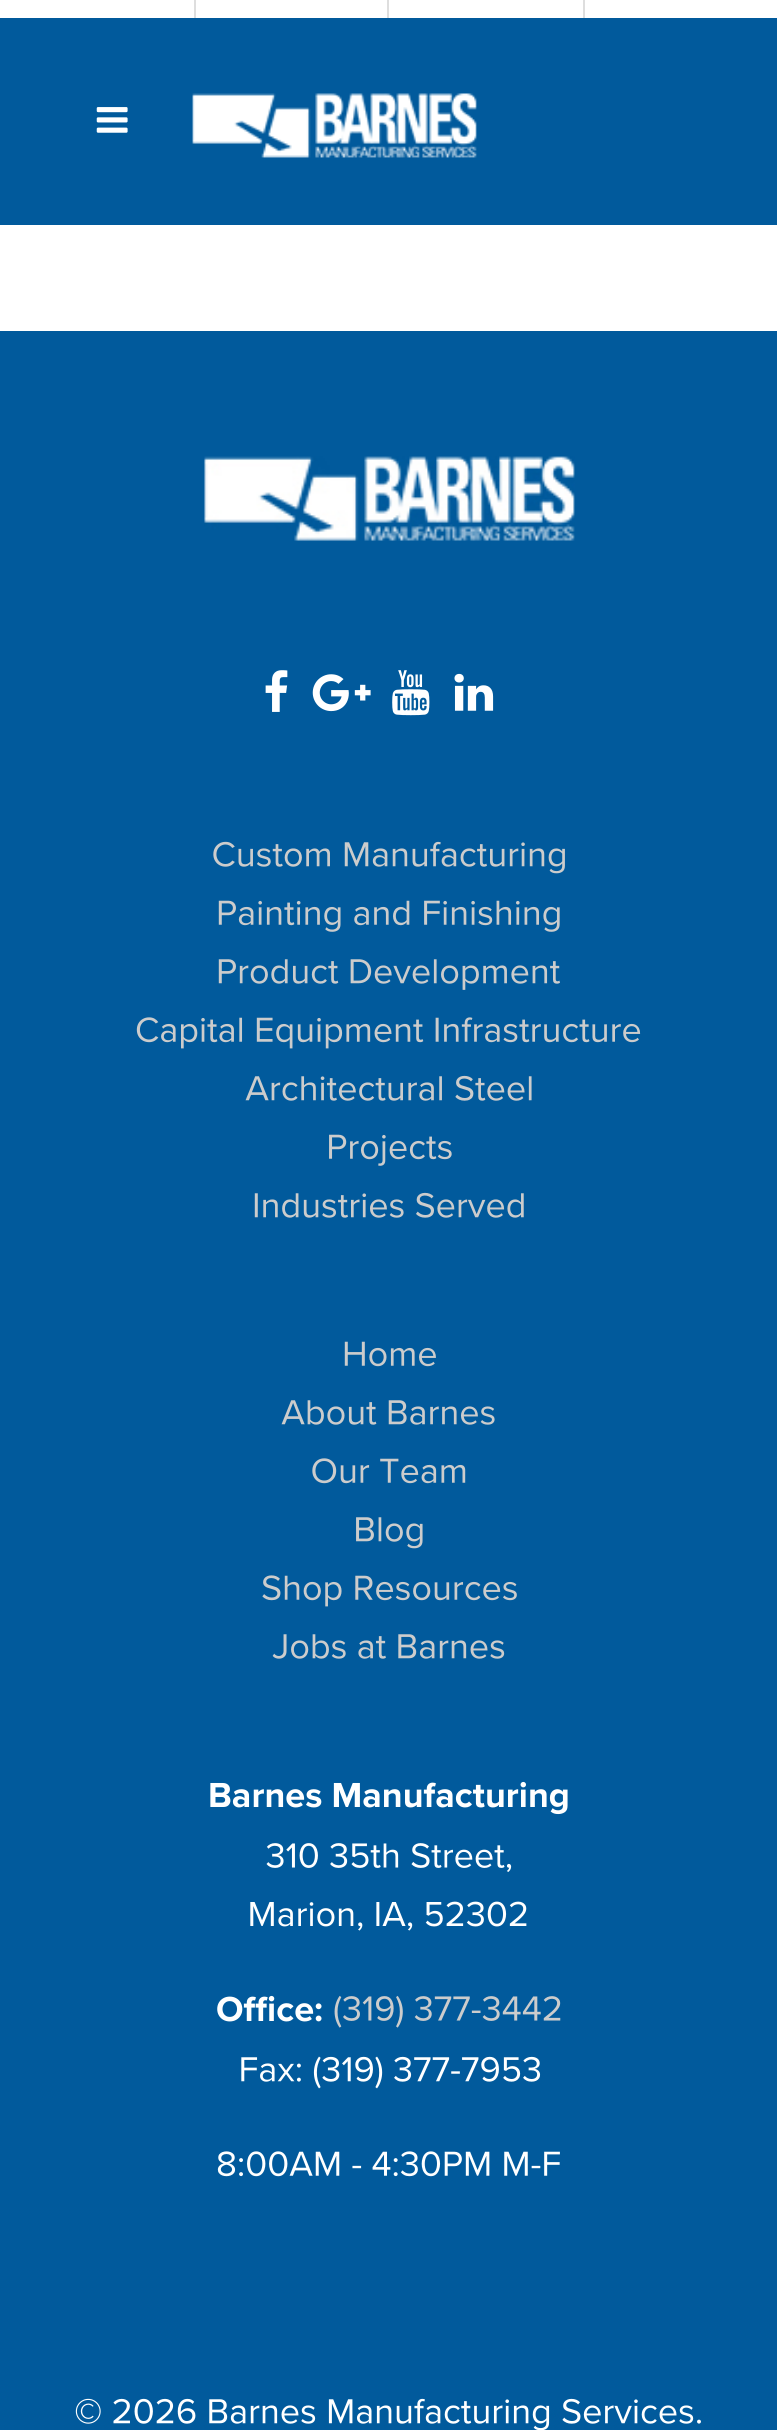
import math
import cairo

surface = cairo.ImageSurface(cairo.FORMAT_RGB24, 777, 2430)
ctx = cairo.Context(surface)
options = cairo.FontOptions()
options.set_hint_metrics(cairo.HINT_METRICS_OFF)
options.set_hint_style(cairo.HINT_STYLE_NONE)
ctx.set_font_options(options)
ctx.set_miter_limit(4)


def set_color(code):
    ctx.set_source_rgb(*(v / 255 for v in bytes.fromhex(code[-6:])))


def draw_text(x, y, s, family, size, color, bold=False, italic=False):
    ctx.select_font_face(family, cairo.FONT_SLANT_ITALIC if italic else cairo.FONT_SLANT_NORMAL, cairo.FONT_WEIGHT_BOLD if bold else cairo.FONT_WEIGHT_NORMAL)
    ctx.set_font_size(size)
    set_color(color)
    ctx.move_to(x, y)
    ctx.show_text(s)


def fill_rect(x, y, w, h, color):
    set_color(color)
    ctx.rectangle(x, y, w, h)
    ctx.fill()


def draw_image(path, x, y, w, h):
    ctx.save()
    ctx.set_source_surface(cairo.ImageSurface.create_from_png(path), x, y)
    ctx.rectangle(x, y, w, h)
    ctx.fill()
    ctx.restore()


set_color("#015a9c")
ctx.paint()
fill_rect(0, 0, 777, 18, "#ffffff")
fill_rect(194, 0, 2, 18, "#dedede")
fill_rect(387, 0, 2, 18, "#dedede")
fill_rect(583, 0, 2, 18, "#dedede")
draw_image("assets/img1.png", 96, 107, 32, 26)
draw_image("assets/img2.png", 192, 93, 285, 65)
fill_rect(0, 225, 777, 106, "#ffffff")
draw_image("assets/img3.png", 204, 456, 371, 85)
draw_image("assets/img4.png", 265, 670, 23, 42)
draw_image("assets/img5.png", 312, 674, 59, 38)
draw_image("assets/img6.png", 392, 670, 38, 46)
draw_image("assets/img7.png", 454, 673, 40, 38)
draw_image("assets/img8.png", 213, 841, 352, 33)
draw_image("assets/img9.png", 218, 900, 342, 32)
draw_image("assets/img10.png", 218, 959, 342, 31)
draw_image("assets/img11.png", 136, 1017, 505, 32)
draw_image("assets/img12.png", 245, 1075, 287, 26)
draw_image("assets/img13.png", 329, 1134, 123, 32)
draw_image("assets/img14.png", 254, 1192, 270, 26)
draw_image("assets/img15.png", 344, 1341, 92, 26)
draw_image("assets/img16.png", 281, 1400, 214, 25)
draw_image("assets/img17.png", 312, 1458, 154, 26)
draw_image("assets/img18.png", 356, 1517, 67, 32)
draw_image("assets/img19.png", 262, 1575, 255, 32)
draw_image("assets/img20.png", 272, 1634, 233, 25)
draw_text(208, 1807, "Barnes Manufacturing", "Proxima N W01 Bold", 36, "#ffffff", bold=True)
draw_image("assets/img21.png", 266, 1843, 246, 29)
draw_image("assets/img22.png", 250, 1901, 277, 30)
draw_text(216, 2021, "Office:", "Proxima N W01 Bold", 36, "#ffffff", bold=True)
draw_image("assets/img23.png", 334, 1995, 227, 33)
draw_image("assets/img24.png", 241, 2056, 300, 33)
draw_image("assets/img25.png", 217, 2151, 343, 26)
draw_image("assets/img26.png", 75, 2398, 626, 32)
surface.write_to_png("output.png")
